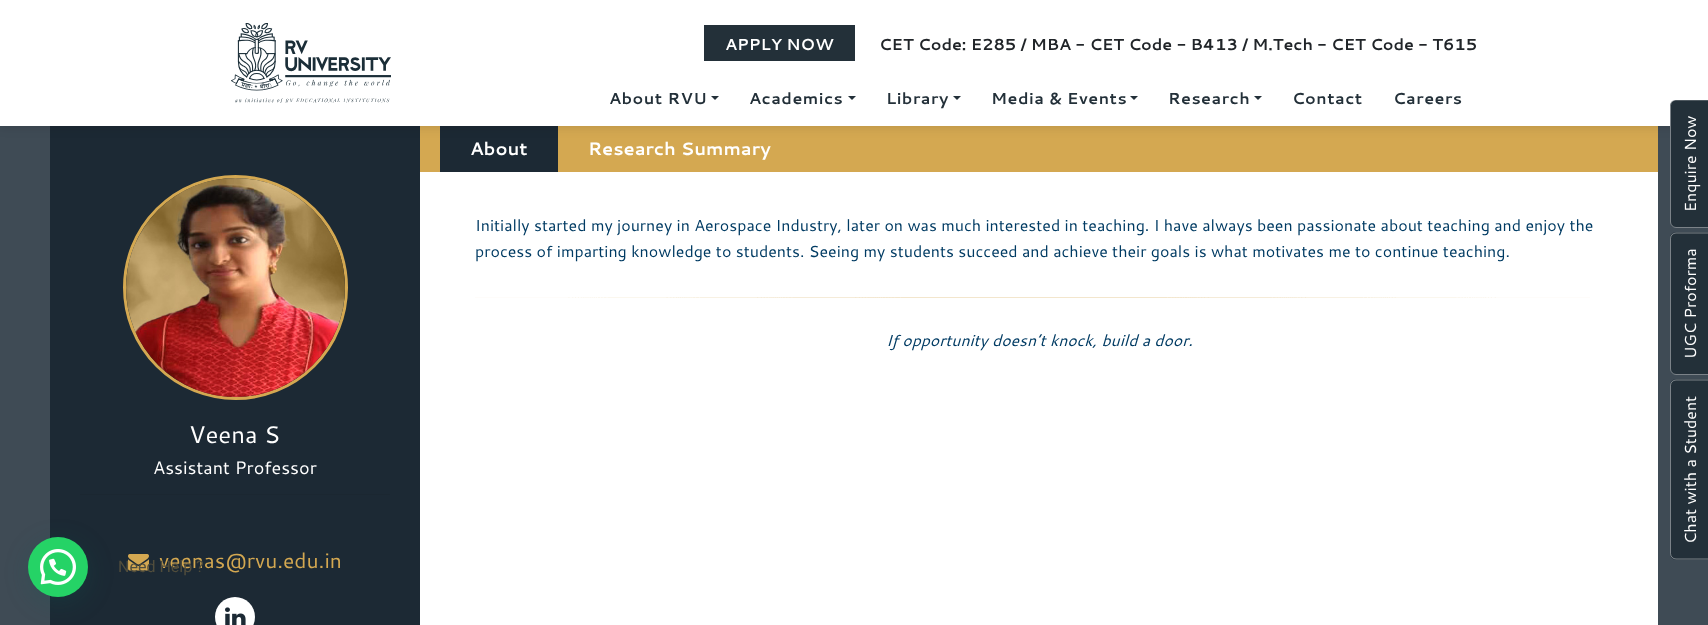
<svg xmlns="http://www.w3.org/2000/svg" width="1708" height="625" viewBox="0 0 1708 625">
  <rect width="100%" height="100%" fill="rgb(63,75,85)"/>
  <rect x="420" y="126" width="1238" height="46" fill="rgb(212,168,81)"/>
  <rect x="440" y="126" width="118" height="46" fill="rgb(28,41,52)"/>
  <rect x="50" y="126" width="370" height="499" fill="rgb(28,41,52)"/>
  <rect x="-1" y="-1" width="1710" height="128" fill="rgba(0,0,0,0.12)" filter="blur(5.5px)"/>
  <rect x="0" y="0" width="1708" height="126" fill="rgb(255,255,255)"/>
  <image x="231" y="23" width="160" height="80" href="pic1.png"/>
  <rect x="704" y="25" width="151" height="36" fill="rgb(35,48,57)"/>
  <text x="725" y="50" font-family="Cantarell" font-size="16" font-weight="bold" fill="rgb(255,255,255)">APPLY NOW</text>
  <text x="879" y="50" font-family="Cantarell" font-size="16" font-weight="bold" fill="rgb(33,37,41)">CET Code: E285 / MBA - CET Code - B413 / M.Tech - CET Code - T615</text>
  <text x="609" y="104" font-family="Cantarell" font-size="16" font-weight="bold" letter-spacing="0.5" fill="rgb(35,48,57)">About RVU</text>
  <path d="M711 96H719L715 100Z" fill="rgb(35,48,57)"/>
  <text x="749" y="104" font-family="Cantarell" font-size="16" font-weight="bold" letter-spacing="0.5" fill="rgb(35,48,57)">Academics</text>
  <path d="M848 96H856L852 100Z" fill="rgb(35,48,57)"/>
  <text x="886" y="104" font-family="Cantarell" font-size="16" font-weight="bold" letter-spacing="0.5" fill="rgb(35,48,57)">Library</text>
  <path d="M953 96H961L957 100Z" fill="rgb(35,48,57)"/>
  <text x="991" y="104" font-family="Cantarell" font-size="16" font-weight="bold" letter-spacing="0.5" fill="rgb(35,48,57)">Media &amp; Events</text>
  <path d="M1130 96H1138L1134 100Z" fill="rgb(35,48,57)"/>
  <text x="1168" y="104" font-family="Cantarell" font-size="16" font-weight="bold" letter-spacing="0.5" fill="rgb(35,48,57)">Research</text>
  <path d="M1254 96H1262L1258 100Z" fill="rgb(35,48,57)"/>
  <g font-family="Cantarell" font-size="16" font-weight="bold" letter-spacing="0.5" fill="rgb(35,48,57)">
    <text x="1292" y="104">Contact</text>
    <text x="1393" y="104">Careers</text>
  </g>
  <g font-family="Cantarell" font-size="18" font-weight="bold" fill="rgb(255,255,255)">
    <text x="470" y="155">About</text>
    <text x="588" y="155">Research Summary</text>
  </g>
  <rect x="420" y="172" width="1238" height="453" fill="rgb(255,255,255)"/>
  <g font-family="Cantarell" font-size="16" fill="rgb(0,59,99)">
    <text>
      <tspan x="475" y="231">Initially started my journey in Aerospace Industry, later on was much interested in teaching. I have always been passionate about teaching and enjoy the</tspan>
      <tspan x="475" y="257">process of imparting knowledge to students. Seeing my students succeed and achieve their goals is what motivates me to continue teaching.</tspan>
    </text>
  </g>
  <image x="475" y="297" width="1115" height="1" href="pic2.png"/>
  <text x="886" y="346" font-family="Cantarell" font-size="16" font-style="italic" fill="rgb(0,59,99)">If opportunity doesn’t knock, build a door.</text>
  <circle cx="235.5" cy="287.5" r="111" fill="none" stroke="rgb(212,168,81)" stroke-width="3"/>
  <image x="126" y="178" width="219" height="219" href="pic3.png"/>
  <text x="189" y="443" font-family="Cantarell" font-size="24" fill="rgb(255,255,255)">Veena S</text>
  <text x="153" y="474" font-family="Cantarell" font-size="18" fill="rgb(255,255,255)">Assistant Professor</text>
  <rect x="80" y="494" width="310" height="1" fill="rgb(27,39,49)"/>
  <image x="128" y="554" width="21" height="17" href="pic4.png"/>
  <text x="159" y="568" font-family="Cantarell" font-size="21" fill="rgb(212,168,81)">veenas@rvu.edu.in</text>
  <circle cx="235" cy="617" r="20" fill="rgb(255,255,255)"/>
  <image x="225" y="607" width="21" height="18" href="pic5.png"/>
  <path d="M1670 222V106C1670 102 1673 100 1676 100H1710V228H1676C1673 228 1670 225 1670 222Z" fill="rgb(35,48,57)"/>
  <path d="M1670.5 222V105.5C1670.5 102.5 1673 100 1676 100H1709.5V227.5H1676C1673 227.5 1670.5 225 1670.5 222Z" fill="none" stroke="rgba(255,255,255,0.4)"/>
  <text x="1696" y="212" transform="rotate(-90 1696 212)" font-family="Cantarell" font-size="16" fill="rgb(255,255,255)">Enquire Now</text>
  <path d="M1670 369V238C1670 235 1673 232 1676 232H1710V375H1676C1673 375 1670 372 1670 369Z" fill="rgb(35,48,57)"/>
  <path d="M1670.5 369V238.5C1670.5 235.5 1673 233 1676 233H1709.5V374.5H1676C1673 374.5 1670.5 372 1670.5 369Z" fill="none" stroke="rgba(255,255,255,0.4)"/>
  <text x="1696" y="359" transform="rotate(-90 1696 359)" font-family="Cantarell" font-size="16" fill="rgb(255,255,255)">UGC Proforma</text>
  <path d="M1670 554V385C1670 382 1673 379 1676 379H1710V560H1676C1673 560 1670 557 1670 554Z" fill="rgb(35,48,57)"/>
  <path d="M1670.5 553.5V385.5C1670.5 382.5 1673 380 1676 380H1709.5V559H1676C1673 559 1670.5 556.5 1670.5 553.5Z" fill="none" stroke="rgba(255,255,255,0.4)"/>
  <text x="1696" y="544" transform="rotate(-90 1696 544)" font-family="Cantarell" font-size="16" fill="rgb(255,255,255)">Chat with a Student</text>
  <rect x="29" y="543" width="60" height="60" rx="30" fill="rgba(7,94,84,0.24)" filter="blur(12px)"/>
  <circle cx="58" cy="567" r="30" fill="rgb(37,211,102)"/>
  <image x="40" y="549" width="36" height="36" href="pic6.png"/>
  <text x="118" y="572" font-family="Roboto" font-size="16" fill="rgb(81,77,60)">Need Help ?</text>
</svg>
